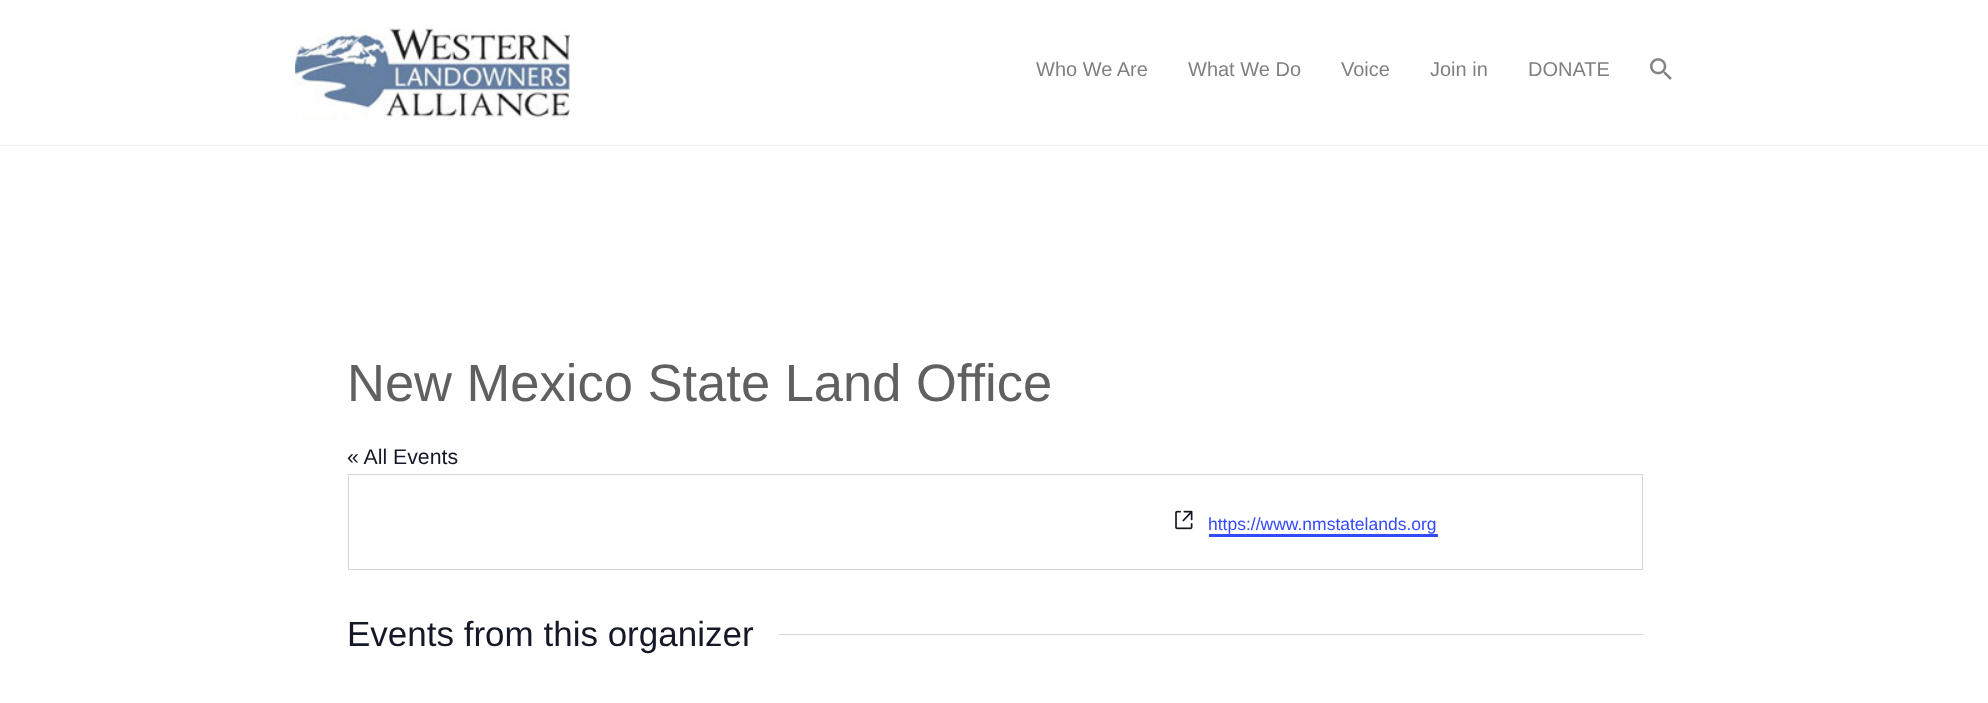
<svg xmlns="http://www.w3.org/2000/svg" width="1988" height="703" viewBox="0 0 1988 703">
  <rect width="100%" height="100%" fill="rgb(255,255,255)"/>
  <rect x="0" y="145" width="1988" height="1" fill="rgb(238,238,238)"/>
  <image x="294" y="25" width="276" height="95" href="pic1.png"/>
  <g font-family="Liberation Sans" font-size="20" fill="rgb(128,128,128)">
    <text x="1036" y="76">Who We Are</text>
    <text x="1188" y="76">What We Do</text>
    <text x="1341" y="76">Voice</text>
    <text x="1430" y="76">Join in</text>
    <text x="1528" y="76">DONATE</text>
  </g>
  <image x="1650" y="58" width="22" height="22" href="pic2.png"/>
  <text x="347" y="401" font-family="Liberation Sans" font-size="52.5" fill="rgb(96,96,96)">New Mexico State Land Office</text>
  <text x="347" y="464" font-family="Liberation Sans" font-size="21.25" fill="rgb(20,24,39)">« All Events</text>
  <rect x="348.5" y="474.5" width="1294" height="95" fill="none" stroke="rgb(213,213,213)"/>
  <image x="1175" y="510" width="18" height="20" href="pic3.png"/>
  <text x="1208" y="530" font-family="Liberation Sans" font-size="17.5" fill="rgb(51,74,255)">https://www.nmstatelands.org</text>
  <rect x="1209" y="534" width="229" height="3" fill="rgb(51,74,255)"/>
  <text x="347" y="646" font-family="Liberation Sans" font-size="35" fill="rgb(20,24,39)">Events from this organizer</text>
  <rect x="779" y="634" width="864" height="1" fill="rgb(213,213,213)"/>
</svg>
